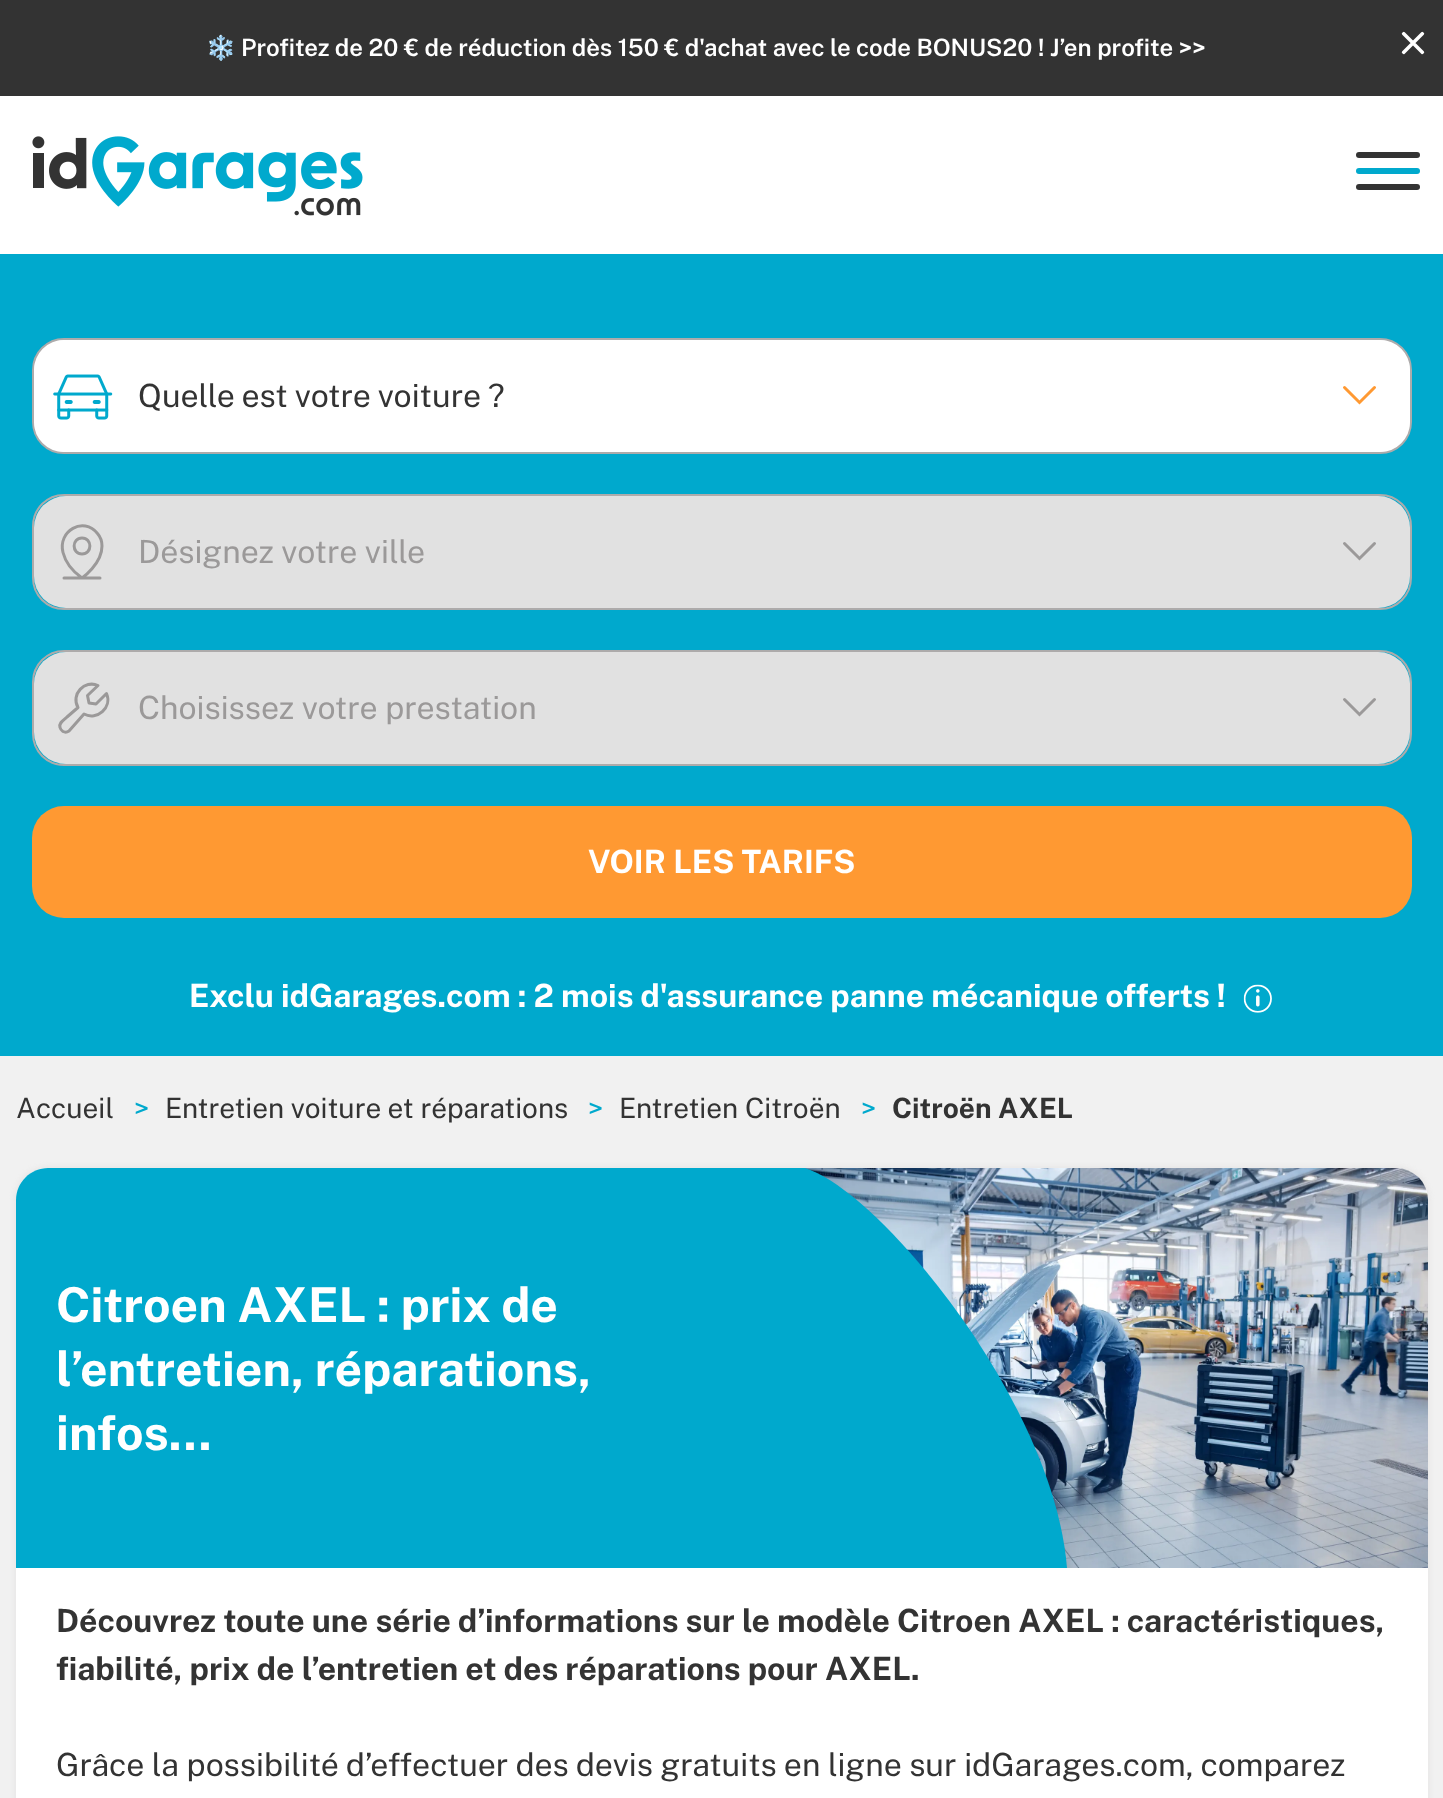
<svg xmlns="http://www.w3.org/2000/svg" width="1443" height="1798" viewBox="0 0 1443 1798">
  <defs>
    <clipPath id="clip1"><path d="M1413 22L1434 43L1413 64L1392 43Z"/></clipPath>
  </defs>
  <rect width="100%" height="100%" fill="rgb(241,241,241)"/>
  <rect x="0" y="96" width="1443" height="158" fill="rgb(255,255,255)"/>
  <rect x="0" y="0" width="1443" height="96" fill="rgb(51,51,51)"/>
  <text x="206" y="56" font-family="Noto Color Emoji" font-size="24" font-weight="bold" fill="rgb(255,255,255)">❄️</text>
  <text x="241" y="56" font-family="Public Sans" font-size="24" font-weight="600" fill="rgb(255,255,255)">Profitez de 20 € de réduction dès 150 € d'achat avec le code BONUS20 ! J’en profite &gt;&gt;</text>
  <g clip-path="url(#clip1)">
    <path d="M1403.5 33.5L1422.5 52.5M1422.5 33.5L1403.5 52.5" fill="none" stroke="rgb(255,255,255)" stroke-width="3.5" stroke-linecap="round" stroke-linejoin="round"/>
  </g>
  <image x="32" y="136" width="331" height="80" href="pic1.png"/>
  <rect x="1356" y="168" width="64" height="6" rx="3" fill="rgb(0,169,205)"/>
  <rect x="1356" y="152" width="64" height="6" rx="3" fill="rgb(51,51,51)"/>
  <rect x="1356" y="184" width="64" height="6" rx="3" fill="rgb(51,51,51)"/>
  <rect x="0" y="254" width="1443" height="802" fill="rgb(0,169,205)"/>
  <rect x="33" y="339" width="1378" height="114" rx="31" fill="rgb(255,255,255)" stroke="rgb(173,171,171)" stroke-width="2"/>
  <rect x="34" y="340" width="1376" height="112" rx="32" fill="rgb(255,255,255)"/>
  <image x="53" y="374" width="60" height="46" href="pic2.png"/>
  <text x="138" y="407" word-spacing="-0.5" font-family="Public Sans" font-size="32" fill="rgb(51,51,51)">Quelle est votre voiture ?</text>
  <path d="M1344.5 387.5L1359.5 402.5L1374.5 387.5" fill="none" stroke="rgb(255,153,50)" stroke-width="3" stroke-linecap="round"/>
  <rect x="33" y="495" width="1378" height="114" rx="31" fill="none" stroke="rgb(173,171,171)" stroke-width="2"/>
  <rect x="34" y="496" width="1376" height="112" rx="32" fill="rgb(255,255,255)"/>
  <path d="M64 578H100M82 554C92.5 554 92.5 538 82 538C71.5 538 71.5 554 82 554ZM102 546C102 564 82 578 82 578C73.5 572 65.5 562.5 63 552.5C57.5 531 83.5 516 97.5 533.5C100.5 537 102 541.5 102 546Z" fill="none" stroke="rgb(173,171,171)" stroke-width="3" stroke-linecap="round" stroke-linejoin="round"/>
  <text x="138" y="563" font-family="Public Sans" font-size="32" fill="rgb(173,171,171)">Désignez votre ville</text>
  <path d="M1344.5 543.5L1359.5 558.5L1374.5 543.5" fill="none" stroke="rgb(173,171,171)" stroke-width="3" stroke-linecap="round"/>
  <rect x="34" y="496" width="1376" height="112" rx="32" fill="rgba(51,51,51,0.15)"/>
  <rect x="33" y="651" width="1378" height="114" rx="31" fill="none" stroke="rgb(173,171,171)" stroke-width="2"/>
  <rect x="34" y="652" width="1376" height="112" rx="32" fill="rgb(255,255,255)"/>
  <path d="M106.5 693.5C112.5 707.5 97 721 84 714L69 731C67.5 732 65 732.5 63 731.5C61.5 730.5 60.5 729.5 60 727.5C58.5 722.5 64 720 67 717L78 707.5C70.5 694.5 84.5 679.5 98 685.5L87.5 695.5L89 703L96 704Z" fill="none" stroke="rgb(173,171,171)" stroke-width="3" stroke-linecap="round" stroke-linejoin="round"/>
  <text x="138" y="719" font-family="Public Sans" font-size="32" fill="rgb(173,171,171)">Choisissez votre prestation</text>
  <path d="M1344.5 699.5L1359.5 714.5L1374.5 699.5" fill="none" stroke="rgb(173,171,171)" stroke-width="3" stroke-linecap="round"/>
  <rect x="34" y="652" width="1376" height="112" rx="32" fill="rgba(51,51,51,0.15)"/>
  <rect x="32" y="806" width="1380" height="112" rx="32" fill="rgb(255,153,50)"/>
  <g font-family="Public Sans" font-size="32" font-weight="bold" fill="rgb(255,255,255)">
    <text x="588" y="873">VOIR LES TARIFS</text>
    <text x="189" y="1007">Exclu idGarages.com : 2 mois d'assurance panne mécanique offerts !</text>
  </g>
  <image x="1243" y="984" width="29" height="29" href="pic3.png"/>
  <text x="16" y="1118" font-family="Public Sans" font-size="28" fill="rgb(51,51,51)">Accueil</text>
  <text x="134" y="1118" font-family="Public Sans" font-size="28" fill="rgb(0,169,205)">&gt;</text>
  <text x="165" y="1118" font-family="Public Sans" font-size="28" fill="rgb(51,51,51)">Entretien voiture et réparations</text>
  <text x="588" y="1118" font-family="Public Sans" font-size="28" fill="rgb(0,169,205)">&gt;</text>
  <text x="619" y="1118" font-family="Public Sans" font-size="28" fill="rgb(51,51,51)">Entretien Citroën</text>
  <text x="861" y="1118" font-family="Public Sans" font-size="28" fill="rgb(0,169,205)">&gt;</text>
  <text x="892" y="1118" font-family="Public Sans" font-size="28" font-weight="bold" fill="rgb(51,51,51)">Citroën AXEL</text>
  <rect x="14" y="1166" width="1416" height="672" rx="34" fill="rgb(232,231,231)" filter="blur(2px)"/>
  <rect x="16" y="1168" width="1412" height="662" rx="32" fill="rgb(255,255,255)"/>
  <path d="M48 1168H792V1568H16V1200C16 1182.5 30.5 1168 48 1168Z" fill="rgb(0,169,205)"/>
  <g font-family="Public Sans" font-size="48" font-weight="bold" fill="rgb(255,255,255)">
    <text>
      <tspan x="56" y="1322">Citroen AXEL : prix de</tspan>
      <tspan x="56" y="1386">l’entretien, réparations,</tspan>
      <tspan x="56" y="1450">infos…</tspan>
    </text>
  </g>
  <image x="805" y="1168" width="623" height="400" href="pic4.png"/>
  <path d="M783 1568V1168H805C881 1192 1054 1403 1067 1568Z" fill="rgb(0,169,205)"/>
  <g font-family="Public Sans" font-size="32" font-weight="bold" fill="rgb(51,51,51)">
    <text>
      <tspan x="56" y="1632">Découvrez toute une série d’informations sur le modèle Citroen AXEL : caractéristiques,</tspan>
      <tspan x="56" y="1680">fiabilité, prix de l’entretien et des réparations pour AXEL.</tspan>
    </text>
  </g>
  <text x="56" y="1776" word-spacing="-0.25" font-family="Public Sans" font-size="32" fill="rgb(51,51,51)">Grâce la possibilité d’effectuer des devis gratuits en ligne sur idGarages.com, comparez</text>
</svg>
